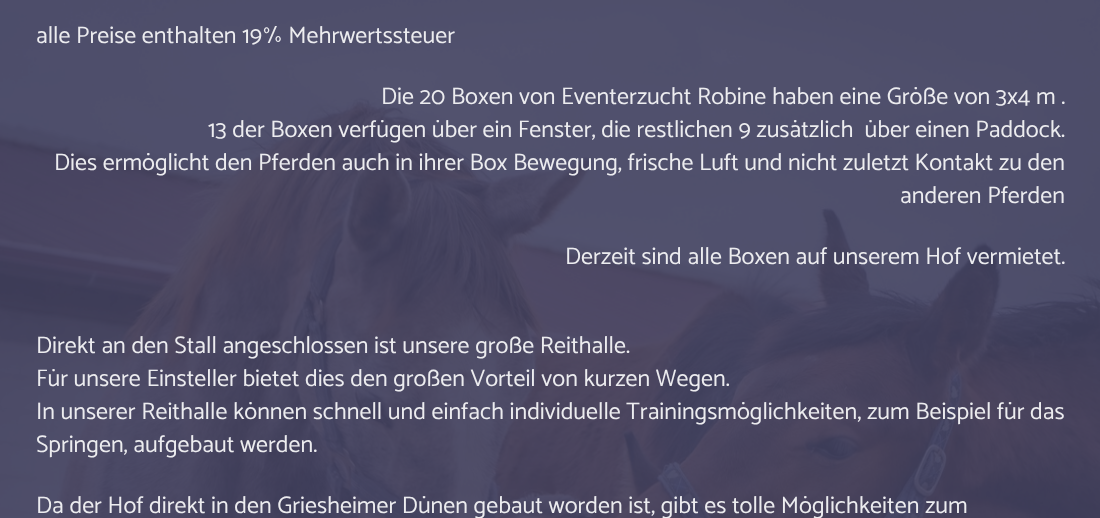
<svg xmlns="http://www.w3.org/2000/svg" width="1100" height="518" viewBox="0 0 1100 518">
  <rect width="100%" height="100%" fill="rgb(255,255,255)"/>
  <image x="0" y="0" width="1100" height="518" href="pic1.png"/>
  <g font-family="Catamaran" font-size="24" fill="rgb(236,236,239)">
    <text x="36" y="43">alle Preise enthalten 19% Mehrwertssteuer</text>
    <text x="381" y="104">Die 20 Boxen von Eventerzucht Robine haben eine Größe von 3x4 m .</text>
    <text x="208" y="137" xml:space="preserve">13 der Boxen verfügen über ein Fenster, die restlichen 9 zusätzlich  über einen Paddock.</text>
    <text x="54" y="170">Dies ermöglicht den Pferden auch in ihrer Box Bewegung, frische Luft und nicht zuletzt Kontakt zu den</text>
    <text x="900" y="203">anderen Pferden</text>
    <text x="565" y="264">Derzeit sind alle Boxen auf unserem Hof vermietet.</text>
    <text>
      <tspan x="36" y="353">Direkt an den Stall angeschlossen ist unsere große Reithalle.</tspan>
      <tspan x="36" y="386">Für unsere Einsteller bietet dies den großen Vorteil von kurzen Wegen.</tspan>
      <tspan x="36" y="419">In unserer Reithalle können schnell und einfach individuelle Trainingsmöglichkeiten, zum Beispiel für das</tspan>
      <tspan x="36" y="452">Springen, aufgebaut werden.</tspan>
    </text>
    <text x="36" y="513">Da der Hof direkt in den Griesheimer Dünen gebaut worden ist, gibt es tolle Möglichkeiten zum</text>
  </g>
</svg>
